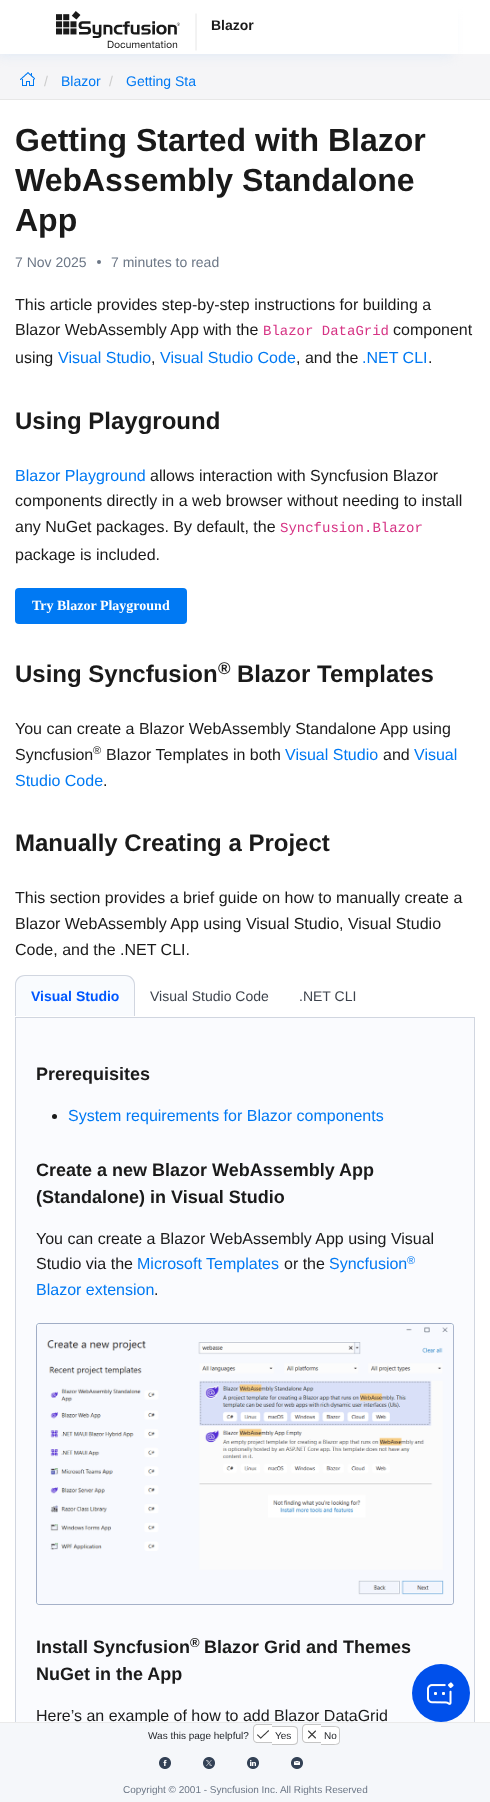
<svg xmlns="http://www.w3.org/2000/svg" width="490" height="1802" viewBox="0 0 490 1802">
  <defs>
    <clipPath id="clip1"><path d="M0 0H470V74H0ZM-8 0H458V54H-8Z" clip-rule="evenodd"/></clipPath>
  </defs>
  <rect width="100%" height="100%" fill="rgb(255,255,255)"/>
  <rect x="0" y="54" width="490" height="45" fill="rgb(245,245,247)"/>
  <image x="20" y="72" width="15" height="14" href="pic2.png"/>
  <g clip-path="url(#clip1)">
    <rect x="-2" y="14" width="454" height="42" fill="rgb(226,234,245)" filter="blur(5.5px)"/>
  </g>
  <image x="56" y="11" width="141" height="40" href="pic1.png"/>
  <text x="211" y="30" font-family="Liberation Sans" font-size="14" font-weight="bold" fill="rgb(26,26,26)">Blazor</text>
  <rect x="0" y="99" width="490" height="1" fill="rgb(231,231,231)"/>
  <text x="44" y="86" font-family="Liberation Sans" font-size="14" fill="rgb(204,204,204)">/</text>
  <text x="61" y="86" font-family="Liberation Sans" font-size="14" fill="rgb(0,121,243)">Blazor</text>
  <text x="109" y="86" font-family="Liberation Sans" font-size="14" fill="rgb(204,204,204)">/</text>
  <text x="126" y="86" font-family="Liberation Sans" font-size="14" fill="rgb(0,121,243)">Getting Sta</text>
  <g font-family="Liberation Sans" font-size="32" font-weight="bold" fill="rgb(26,26,26)">
    <text>
      <tspan x="15" y="151">Getting Started with Blazor</tspan>
      <tspan x="15" y="191">WebAssembly Standalone</tspan>
      <tspan x="15" y="231">App</tspan>
    </text>
  </g>
  <text x="15" y="267" font-family="Liberation Sans" font-size="14" fill="rgb(108,119,134)">7 Nov 2025</text>
  <circle cx="99" cy="262" r="2" fill="rgb(108,119,134)"/>
  <text x="111" y="267" font-family="Liberation Sans" font-size="14" fill="rgb(108,119,134)">7 minutes to read</text>
  <g font-family="Liberation Sans" font-size="16" fill="rgb(26,26,26)">
    <text>
      <tspan x="15" y="310">This article provides step-by-step instructions for building a</tspan>
      <tspan x="15" y="335">Blazor WebAssembly App with the</tspan>
    </text>
  </g>
  <text x="263" y="335" font-family="Liberation Mono" font-size="14" fill="rgb(214,51,132)">Blazor DataGrid</text>
  <g font-family="Liberation Sans" font-size="16" fill="rgb(26,26,26)">
    <text x="393" y="335">component</text>
    <text x="15" y="363">using</text>
  </g>
  <text x="58" y="363" font-family="Liberation Sans" font-size="16" fill="rgb(0,121,243)">Visual Studio</text>
  <text x="151" y="363" font-family="Liberation Sans" font-size="16" fill="rgb(26,26,26)">,</text>
  <text x="160" y="363" font-family="Liberation Sans" font-size="16" fill="rgb(0,121,243)">Visual Studio Code</text>
  <text x="296" y="363" font-family="Liberation Sans" font-size="16" fill="rgb(26,26,26)">, and the</text>
  <text x="362" y="363" font-family="Liberation Sans" font-size="16" fill="rgb(0,121,243)">.NET CLI</text>
  <text x="428" y="363" font-family="Liberation Sans" font-size="16" fill="rgb(26,26,26)">.</text>
  <text x="15" y="429" font-family="Liberation Sans" font-size="24" font-weight="bold" fill="rgb(26,26,26)">Using Playground</text>
  <text x="15" y="481" font-family="Liberation Sans" font-size="16" fill="rgb(0,121,243)">Blazor Playground</text>
  <g font-family="Liberation Sans" font-size="16" fill="rgb(26,26,26)">
    <text x="150" y="481">allows interaction with Syncfusion Blazor</text>
    <text>
      <tspan x="15" y="506">components directly in a web browser without needing to install</tspan>
      <tspan x="15" y="532">any NuGet packages. By default, the</tspan>
    </text>
  </g>
  <text x="280" y="532" font-family="Liberation Mono" font-size="14" fill="rgb(214,51,132)">Syncfusion.Blazor</text>
  <text x="15" y="560" font-family="Liberation Sans" font-size="16" fill="rgb(26,26,26)">package is included.</text>
  <rect x="15" y="588" width="172" height="36" rx="4" fill="rgb(0,121,243)"/>
  <text x="32" y="610" font-family="Liberation Serif" font-size="14" font-weight="bold" fill="rgb(255,255,255)">Try Blazor Playground</text>
  <text x="15" y="682" font-family="Liberation Sans" font-size="24" font-weight="bold" fill="rgb(26,26,26)">Using Syncfusion</text>
  <text x="218" y="674" font-family="Liberation Sans" font-size="17" font-weight="bold" fill="rgb(26,26,26)">®</text>
  <text x="237" y="682" font-family="Liberation Sans" font-size="24" font-weight="bold" fill="rgb(26,26,26)">Blazor Templates</text>
  <g font-family="Liberation Sans" font-size="16" fill="rgb(26,26,26)">
    <text>
      <tspan x="15" y="734">You can create a Blazor WebAssembly Standalone App using</tspan>
      <tspan x="15" y="760">Syncfusion</tspan>
    </text>
  </g>
  <text x="93" y="754" font-family="Liberation Sans" font-size="11" fill="rgb(26,26,26)">®</text>
  <text x="106" y="760" font-family="Liberation Sans" font-size="16" fill="rgb(26,26,26)">Blazor Templates in both</text>
  <text x="285" y="760" font-family="Liberation Sans" font-size="16" fill="rgb(0,121,243)">Visual Studio</text>
  <text x="383" y="760" font-family="Liberation Sans" font-size="16" fill="rgb(26,26,26)">and</text>
  <g font-family="Liberation Sans" font-size="16" fill="rgb(0,121,243)">
    <text x="414" y="760">Visual</text>
    <text x="15" y="786">Studio Code</text>
  </g>
  <text x="103" y="786" font-family="Liberation Sans" font-size="16" fill="rgb(26,26,26)">.</text>
  <text x="15" y="851" font-family="Liberation Sans" font-size="24" font-weight="bold" fill="rgb(26,26,26)">Manually Creating a Project</text>
  <g font-family="Liberation Sans" font-size="16" fill="rgb(26,26,26)">
    <text>
      <tspan x="15" y="903">This section provides a brief guide on how to manually create a</tspan>
      <tspan x="15" y="929">Blazor WebAssembly App using Visual Studio, Visual Studio</tspan>
      <tspan x="15" y="955">Code, and the .NET CLI.</tspan>
    </text>
  </g>
  <path d="M25 975H125C130.5 975 135 979.5 135 985V1016H15V985C15 979.5 19.5 975 25 975Z" fill="rgb(249,251,254)"/>
  <path d="M25 975H125C131 975 135 979 135 985V1016H15V985C15 979 19 975 25 975ZM25 976H125C130 976 134 980 134 985V1016H16V985C16 980 20 976 25 976Z" fill="rgb(209,214,224)" fill-rule="evenodd"/>
  <text x="31" y="1001" font-family="Liberation Sans" font-size="14" font-weight="bold" fill="rgb(0,87,255)">Visual Studio</text>
  <g font-family="Liberation Sans" font-size="14" fill="rgb(61,67,76)">
    <text x="150" y="1001">Visual Studio Code</text>
    <text x="299" y="1001">.NET CLI</text>
  </g>
  <rect x="16" y="1018" width="458" height="704" fill="rgb(250,251,254)"/>
  <rect x="15.5" y="1017.5" width="459" height="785" fill="none" stroke="rgb(209,214,224)"/>
  <text x="36" y="1080" font-family="Liberation Sans" font-size="18" font-weight="bold" fill="rgb(26,26,26)">Prerequisites</text>
  <circle cx="54.5" cy="1116.5" r="2.5" fill="rgb(26,26,26)"/>
  <text x="68" y="1121" font-family="Liberation Sans" font-size="16" fill="rgb(0,121,243)">System requirements for Blazor components</text>
  <g font-family="Liberation Sans" font-size="18" font-weight="bold" fill="rgb(26,26,26)">
    <text>
      <tspan x="36" y="1176">Create a new Blazor WebAssembly App</tspan>
      <tspan x="36" y="1203">(Standalone) in Visual Studio</tspan>
    </text>
  </g>
  <g font-family="Liberation Sans" font-size="16" fill="rgb(26,26,26)">
    <text>
      <tspan x="36" y="1244">You can create a Blazor WebAssembly App using Visual</tspan>
      <tspan x="36" y="1269">Studio via the</tspan>
    </text>
  </g>
  <text x="137" y="1269" font-family="Liberation Sans" font-size="16" fill="rgb(0,121,243)">Microsoft Templates</text>
  <text x="284" y="1269" font-family="Liberation Sans" font-size="16" fill="rgb(26,26,26)">or the</text>
  <text x="329" y="1269" font-family="Liberation Sans" font-size="16" fill="rgb(0,121,243)">Syncfusion</text>
  <text x="407" y="1264" font-family="Liberation Sans" font-size="11" fill="rgb(0,121,243)">®</text>
  <text x="36" y="1295" font-family="Liberation Sans" font-size="16" fill="rgb(0,121,243)">Blazor extension</text>
  <text x="154" y="1295" font-family="Liberation Sans" font-size="16" fill="rgb(26,26,26)">.</text>
  <image x="36" y="1323" width="418" height="282" href="pic3.png"/>
  <text x="36" y="1653" font-family="Liberation Sans" font-size="18" font-weight="bold" fill="rgb(26,26,26)">Install Syncfusion</text>
  <text x="190" y="1647" font-family="Liberation Sans" font-size="13" font-weight="bold" fill="rgb(26,26,26)">®</text>
  <g font-family="Liberation Sans" font-size="18" font-weight="bold" fill="rgb(26,26,26)">
    <text x="204" y="1653">Blazor Grid and Themes</text>
    <text x="36" y="1680">NuGet in the App</text>
  </g>
  <text x="36" y="1721" font-family="Liberation Sans" font-size="16" fill="rgb(26,26,26)">Here’s an example of how to add Blazor DataGrid</text>
  <circle cx="441" cy="1693" r="29" fill="rgb(0,80,235)"/>
  <image x="427" y="1682" width="27" height="23" href="pic4.png"/>
  <rect x="0" y="1723" width="490" height="79" fill="rgb(245,247,250)"/>
  <rect x="0" y="1722" width="490" height="1" fill="rgb(234,234,234)"/>
  <text x="148" y="1739" font-family="Liberation Sans" font-size="10" fill="rgb(34,37,42)">Was this page helpful?</text>
  <path d="M257 1724H272V1743H257C255 1743 253 1741 253 1739V1728C253 1726 255 1724 257 1724Z" fill="rgb(255,255,255)"/>
  <path d="M257 1724H272V1743H257C255 1743 253 1741 253 1739V1728C253 1726 255 1724 257 1724ZM257 1725H272V1742H257C255.5 1742 254 1740.5 254 1739V1728C254 1726.5 255.5 1725 257 1725Z" fill="rgb(197,197,197)" fill-rule="evenodd"/>
  <path d="M272 1726H294C296 1726 298 1728 298 1730V1741C298 1743 296 1745 294 1745H272Z" fill="rgb(255,255,255)"/>
  <path d="M272 1726H290.5C299 1726 298 1727.5 298 1735.5C298 1743.5 299 1745 290.5 1745H272ZM272 1727H290.5C298 1727 297 1728 297 1735.5C297 1743 298 1744 290.5 1744H272Z" fill="rgb(197,197,197)" fill-rule="evenodd"/>
  <image x="257" y="1730" width="12" height="9" href="pic5.png"/>
  <text x="275" y="1739" font-family="Liberation Sans" font-size="10" fill="rgb(34,37,42)">Yes</text>
  <path d="M306 1724H321V1743H306C304 1743 302 1741 302 1739V1728C302 1726 304 1724 306 1724Z" fill="rgb(255,255,255)"/>
  <path d="M306 1724H321V1743H306C304 1743 302 1741 302 1739V1728C302 1726 304 1724 306 1724ZM306 1725H321V1742H306C304.5 1742 303 1740.5 303 1739V1728C303 1726.5 304.5 1725 306 1725Z" fill="rgb(197,197,197)" fill-rule="evenodd"/>
  <path d="M321 1726H336C338 1726 340 1728 340 1730V1741C340 1743 338 1745 336 1745H321Z" fill="rgb(255,255,255)"/>
  <path d="M321 1726H333.5C341 1726 340 1729 340 1735.5C340 1742 341 1745 333.5 1745H321ZM321 1727H333.5C340.5 1727 339 1729.5 339 1735.5C339 1741.5 340.5 1744 333.5 1744H321Z" fill="rgb(197,197,197)" fill-rule="evenodd"/>
  <image x="308" y="1730" width="8" height="9" href="pic6.png"/>
  <text x="324" y="1739" font-family="Liberation Sans" font-size="10" fill="rgb(34,37,42)">No</text>
  <image x="159" y="1757" width="12" height="12" href="pic7.png"/>
  <image x="203" y="1757" width="12" height="12" href="pic8.png"/>
  <image x="247" y="1757" width="12" height="12" href="pic9.png"/>
  <image x="291" y="1757" width="12" height="12" href="pic10.png"/>
  <text x="123" y="1793" font-family="Liberation Sans" font-size="10" fill="rgb(108,119,134)">Copyright © 2001 - Syncfusion Inc. All Rights Reserved</text>
</svg>
